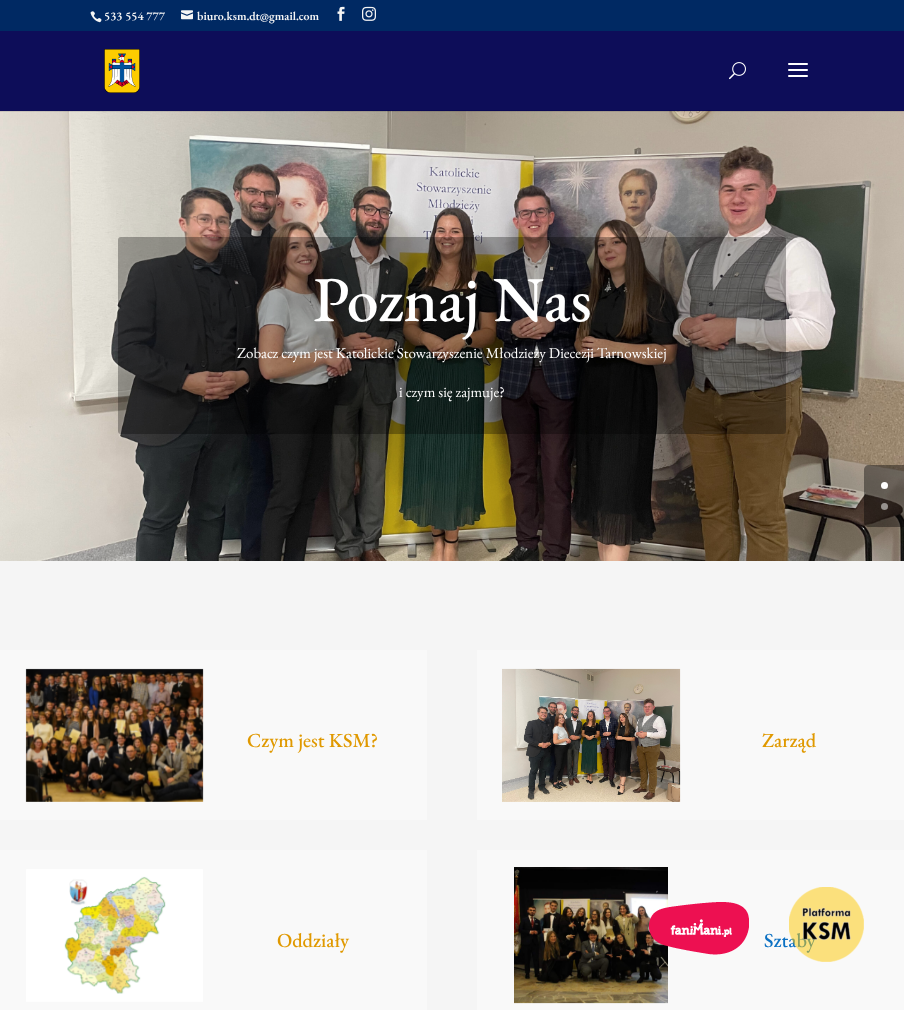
<svg xmlns="http://www.w3.org/2000/svg" width="904" height="1010" viewBox="0 0 904 1010">
  <rect width="100%" height="100%" fill="rgb(245,245,245)"/>
  <rect x="0" y="0" width="904" height="31" fill="rgb(0,41,99)"/>
  <image x="90" y="11" width="12" height="12" href="pic1.png"/>
  <text x="104" y="20" font-family="EB Garamond" font-size="12" font-weight="600" fill="rgb(245,245,245)">533 554 777</text>
  <image x="181" y="10" width="12" height="10" href="pic2.png"/>
  <text x="197" y="20" font-family="EB Garamond" font-size="12" font-weight="600" fill="rgb(245,245,245)">biuro.ksm.dt@gmail.com</text>
  <image x="337" y="6" width="8" height="15" href="pic3.png"/>
  <image x="362" y="6" width="14" height="15" href="pic4.png"/>
  <image x="0" y="110" width="904" height="451" href="pic8.png"/>
  <rect x="0" y="111" width="904" height="1" fill="rgba(0,0,0,0.1)"/>
  <rect x="0" y="31" width="904" height="80" fill="rgba(0,0,80,0.95)"/>
  <image x="104" y="49" width="36" height="44" href="pic5.png"/>
  <image x="729" y="62" width="17" height="18" href="pic6.png"/>
  <image x="788" y="63" width="20" height="14" href="pic7.png"/>
  <rect x="118" y="237" width="668" height="197" rx="3" fill="rgba(0,0,0,0.3)"/>
  <text x="313" y="321" font-family="EB Garamond" font-size="64" font-weight="500" fill="rgb(255,255,255)">Poznaj Nas</text>
  <g font-family="EB Garamond" font-size="15" fill="rgb(255,255,255)">
    <text x="237" y="358">Zobacz czym jest Katolickie Stowarzyszenie Młodzieży Diecezji Tarnowskiej</text>
    <text x="399" y="397">i czym się zajmuje?</text>
  </g>
  <rect x="0" y="650" width="427" height="170" fill="rgb(249,249,249)"/>
  <image x="25" y="668" width="179" height="134" href="pic9.png"/>
  <text x="247" y="747" font-family="EB Garamond" font-size="20" font-weight="500" fill="rgb(224,153,0)">Czym jest KSM?</text>
  <rect x="477" y="650" width="427" height="170" fill="rgb(249,249,249)"/>
  <image x="502" y="668" width="179" height="134" href="pic10.png"/>
  <text x="762" y="747" font-family="EB Garamond" font-size="20" font-weight="500" fill="rgb(224,153,0)">Zarząd</text>
  <rect x="0" y="850" width="427" height="160" fill="rgb(249,249,249)"/>
  <image x="26" y="869" width="177" height="133" href="pic11.png"/>
  <text x="277" y="947" font-family="EB Garamond" font-size="20" font-weight="500" fill="rgb(224,153,0)">Oddziały</text>
  <rect x="477" y="850" width="427" height="160" fill="rgb(249,249,249)"/>
  <image x="514" y="867" width="154" height="137" href="pic12.png"/>
  <text x="764" y="947" font-family="EB Garamond" font-size="20" font-weight="500" fill="rgb(12,113,195)">Sztaby</text>
  <image x="649" y="902" width="100" height="53" href="pic13.png"/>
  <image x="789" y="887" width="75" height="75" href="pic14.png"/>
  <path d="M869 465H904V527H869C866 527 864 525 864 522V470C864 467 866 465 869 465Z" fill="rgba(0,0,0,0.4)"/>
  <circle cx="884.5" cy="485.5" r="3.5" fill="rgb(255,255,255)"/>
  <circle cx="884.5" cy="506.5" r="3.5" fill="rgba(255,255,255,0.5)"/>
</svg>
